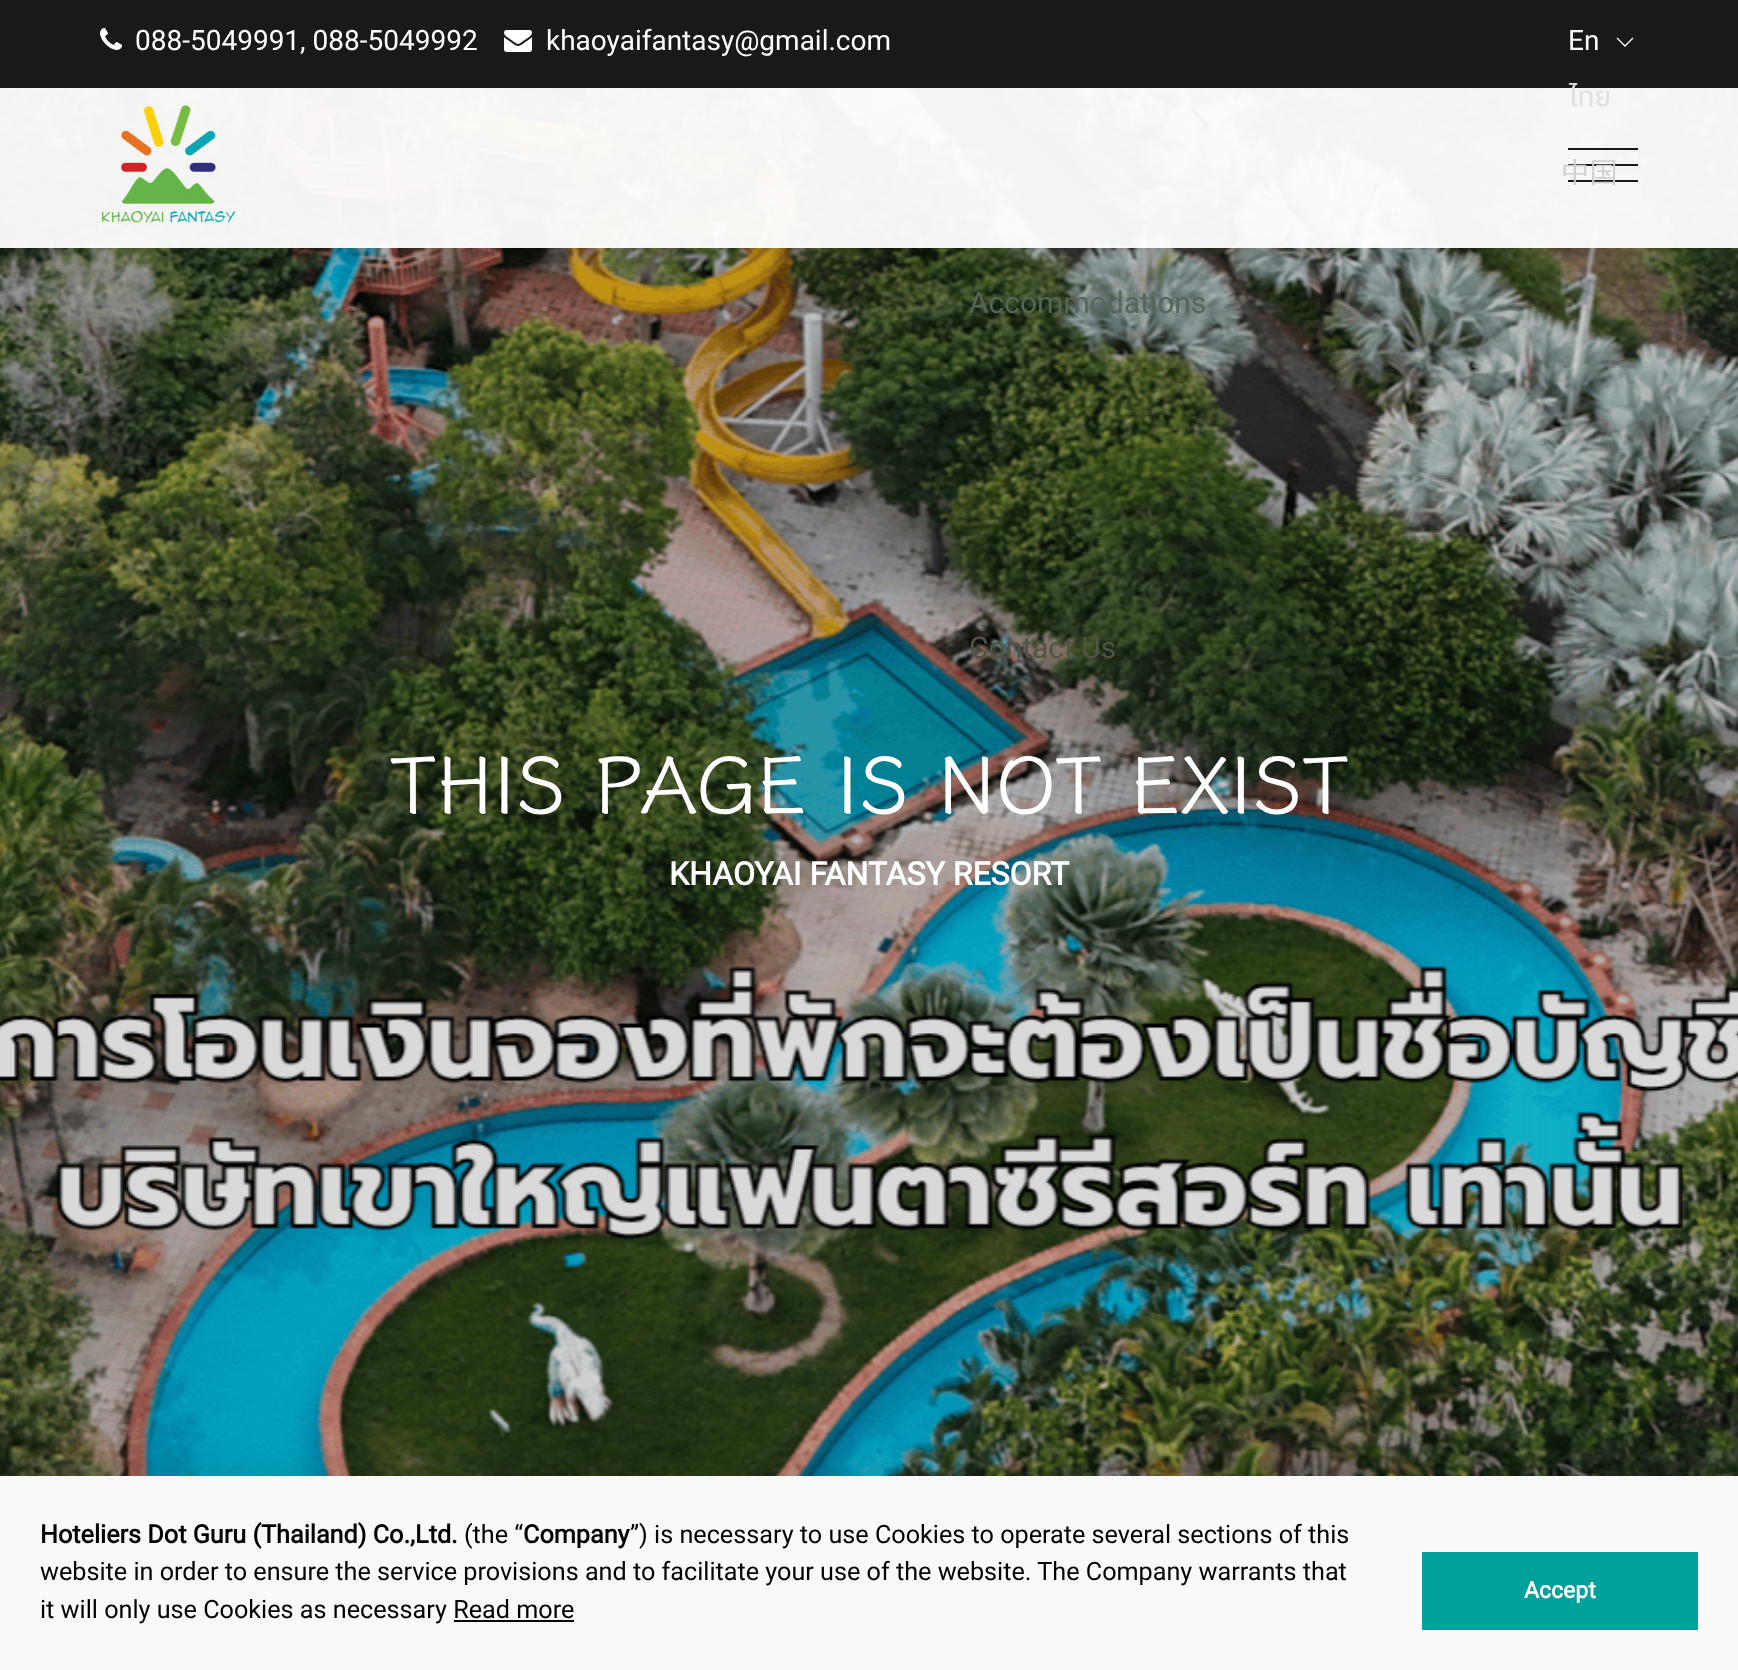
<svg xmlns="http://www.w3.org/2000/svg" width="1738" height="1670" viewBox="0 0 1738 1670">
  <defs>
    <clipPath id="clip1"><rect x="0" y="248" width="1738" height="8"/></clipPath>
  </defs>
  <rect width="100%" height="100%" fill="rgb(255,255,255)"/>
  <image x="0" y="88" width="1738" height="1388" href="pic4.png"/>
  <g clip-path="url(#clip1)">
    <rect x="0" y="88" width="1738" height="160" fill="rgba(0,0,0,0.09)" filter="blur(10px)"/>
  </g>
  <rect x="0" y="88" width="1738" height="160" fill="rgba(255,255,255,0.95)"/>
  <rect x="0" y="0" width="1738" height="88" fill="rgb(24,25,26)"/>
  <image x="100" y="28" width="22" height="22" href="pic1.png"/>
  <text x="135" y="50" font-family="Roboto" font-size="28" fill="rgb(255,255,255)">088-5049991, 088-5049992</text>
  <image x="504" y="30" width="28" height="22" href="pic2.png"/>
  <g font-family="Roboto" font-size="28" fill="rgb(255,255,255)">
    <text x="546" y="50">khaoyaifantasy@gmail.com</text>
    <text x="1568" y="50">En</text>
  </g>
  <path d="M1633 38L1625 46L1617 38" fill="none" stroke="rgb(255,255,255)" stroke-width="1.3"/>
  <text x="1569" y="106" font-family="Noto Sans Thai" font-size="28" fill="rgb(224,224,223)">ไทย</text>
  <rect x="1568" y="164" width="70" height="2" fill="rgb(24,25,26)"/>
  <rect x="1568" y="180" width="70" height="2" fill="rgb(24,25,26)"/>
  <text x="1562" y="182" font-family="WenQuanYi Zen Hei" font-size="28" font-weight="500" fill="rgb(206,206,204)">中国</text>
  <image x="101" y="105" width="135" height="118" href="pic3.png"/>
  <rect x="1568" y="148" width="70" height="2" fill="rgb(24,25,26)"/>
  <text x="969" y="313" font-family="Roboto" font-size="30" fill="rgb(87,101,88)">Accommodations</text>
  <text x="969" y="658" font-family="Roboto" font-size="30" fill="rgb(81,83,69)">Contact Us</text>
  <text x="390" y="813" font-family="Klee One" font-size="80" font-weight="600" fill="rgb(255,255,255)">THIS PAGE IS NOT EXIST</text>
  <text x="669" y="885" font-family="Roboto" font-size="32" font-weight="bold" fill="rgb(255,255,255)">KHAOYAI FANTASY RESORT</text>
  <rect x="0" y="1494" width="1738" height="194" fill="rgba(2,2,3,0.28)" filter="blur(26px)"/>
  <rect x="0" y="1476" width="1738" height="194" fill="rgb(249,249,249)"/>
  <text x="40" y="1543" font-family="Roboto" font-size="25.2" font-weight="bold" fill="rgb(0,0,0)">Hoteliers Dot Guru (Thailand) Co.,Ltd.</text>
  <text x="464" y="1543" font-family="Roboto" font-size="25.2" fill="rgb(0,0,0)">(the “</text>
  <text x="523" y="1543" font-family="Roboto" font-size="25.2" font-weight="bold" fill="rgb(0,0,0)">Company</text>
  <g font-family="Roboto" font-size="25.2" fill="rgb(0,0,0)">
    <text x="630" y="1543">”) is necessary to use Cookies to operate several sections of this</text>
    <text>
      <tspan x="40" y="1580">website in order to ensure the service provisions and to facilitate your use of the website. The Company warrants that</tspan>
      <tspan x="40" y="1618">it will only use Cookies as necessary Read more</tspan>
    </text>
  </g>
  <rect x="454" y="1620" width="120" height="2" fill="rgb(0,0,0)"/>
  <rect x="1422" y="1552" width="276" height="78" fill="rgb(0,160,156)"/>
  <text x="1524" y="1598" font-family="Roboto" font-size="23" font-weight="bold" fill="rgb(255,255,255)">Accept</text>
</svg>
